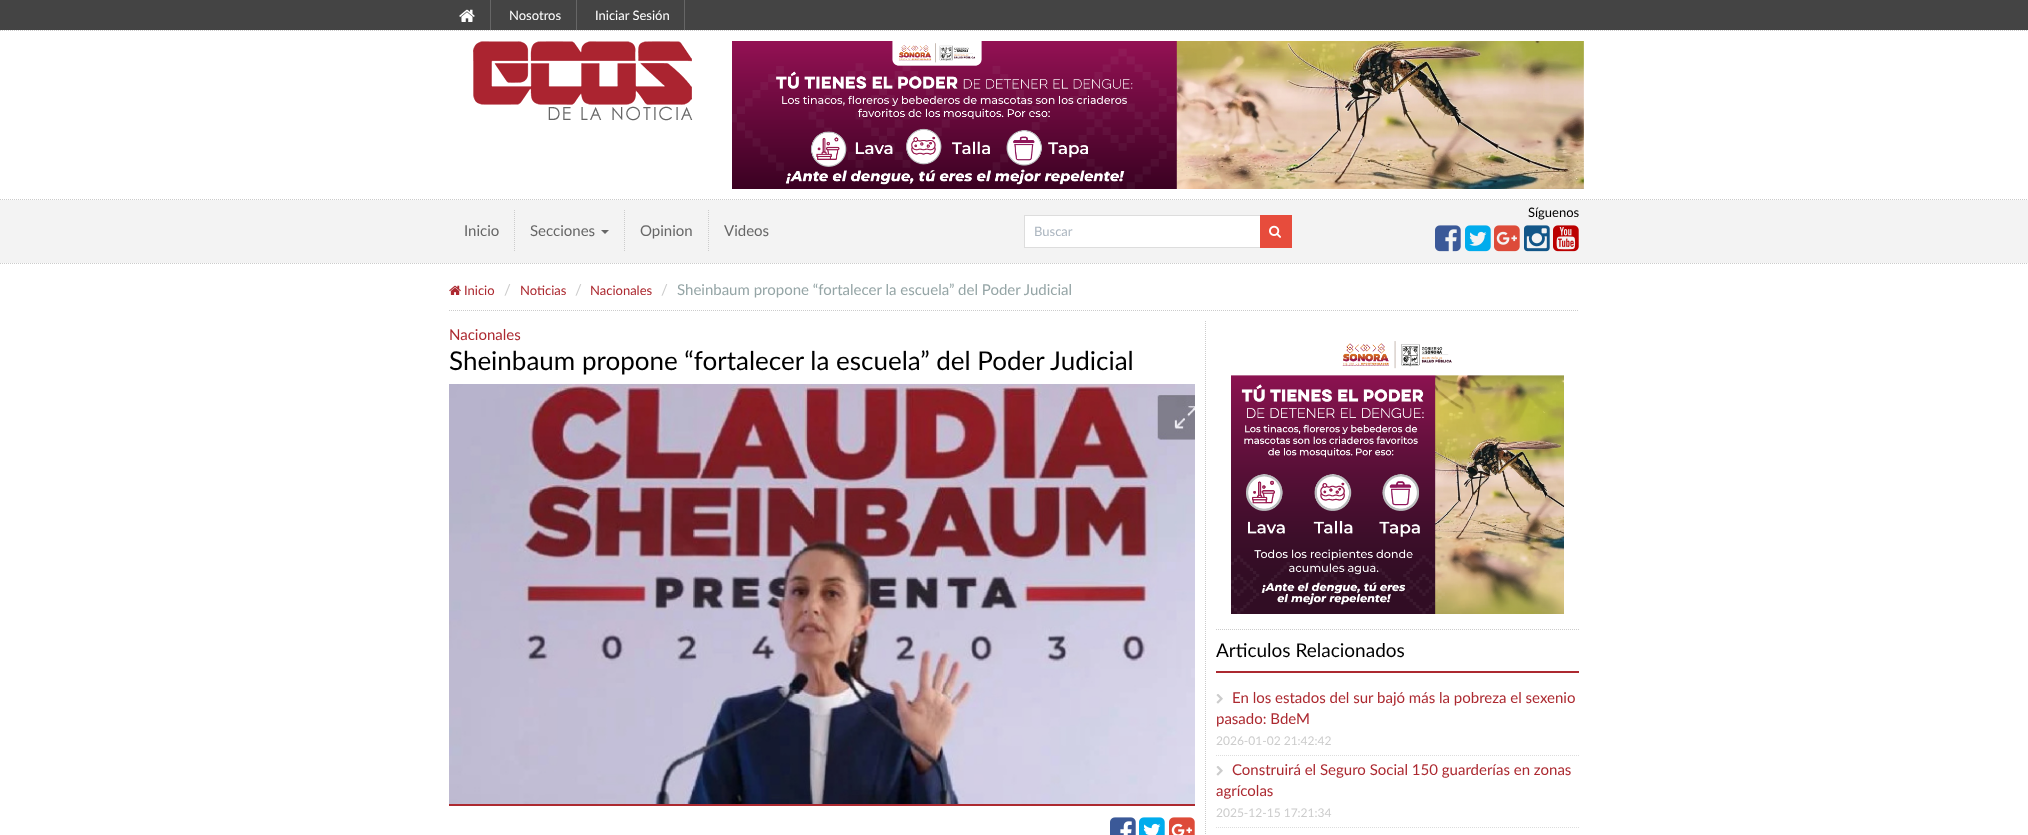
<svg xmlns="http://www.w3.org/2000/svg" width="2028" height="835" viewBox="0 0 2028 835">
  <rect width="100%" height="100%" fill="rgb(255,255,255)"/>
  <rect x="0" y="0" width="2028" height="30" fill="rgb(68,68,68)"/>
  <rect x="490" y="0" width="1" height="30" fill="rgb(102,102,102)"/>
  <image x="459" y="9" width="16" height="13" href="pic1.png"/>
  <rect x="576" y="0" width="1" height="30" fill="rgb(102,102,102)"/>
  <text x="509" y="20" font-family="Lato" font-size="13" fill="rgb(255,255,255)">Nosotros</text>
  <rect x="684" y="0" width="1" height="30" fill="rgb(102,102,102)"/>
  <text x="595" y="20" font-family="Lato" font-size="13" fill="rgb(255,255,255)">Iniciar Sesión</text>
  <path d="M0 30.5H2028" fill="none" stroke="rgb(204,204,204)" stroke-dasharray="1 1"/>
  <path d="M0 199.5H2028" fill="none" stroke="rgb(204,204,204)" stroke-dasharray="1 1"/>
  <image x="473" y="41" width="220" height="80" href="pic2.png"/>
  <image x="732" y="41" width="852" height="148" href="pic3.png"/>
  <path d="M0 263.5H2028" fill="none" stroke="rgb(204,204,204)" stroke-dasharray="1 1"/>
  <rect x="0" y="200" width="2028" height="63" fill="rgb(243,243,243)"/>
  <text x="1528" y="217" font-family="Lato" font-size="13" fill="rgb(0,0,0)">Síguenos</text>
  <image x="1435" y="225" width="26" height="27" href="pic4.png"/>
  <image x="1465" y="225" width="26" height="27" href="pic5.png"/>
  <image x="1494" y="225" width="26" height="27" href="pic6.png"/>
  <image x="1524" y="225" width="26" height="27" href="pic7.png"/>
  <image x="1553" y="225" width="26" height="27" href="pic8.png"/>
  <text x="464" y="236" font-family="Lato" font-size="15" fill="rgb(102,102,102)">Inicio</text>
  <path d="M514.5 210V251" fill="none" stroke="rgb(204,204,204)" stroke-dasharray="1 1"/>
  <text x="530" y="236" font-family="Lato" font-size="15" fill="rgb(102,102,102)">Secciones</text>
  <path d="M601 230H609L605 234Z" fill="rgb(102,102,102)"/>
  <path d="M624.5 210V251" fill="none" stroke="rgb(204,204,204)" stroke-dasharray="1 1"/>
  <text x="640" y="236" font-family="Lato" font-size="15" fill="rgb(102,102,102)">Opinion</text>
  <path d="M708.5 210V251" fill="none" stroke="rgb(204,204,204)" stroke-dasharray="1 1"/>
  <text x="724" y="236" font-family="Lato" font-size="15" fill="rgb(102,102,102)">Videos</text>
  <rect x="1025" y="216" width="235" height="31" fill="rgb(255,255,255)"/>
  <rect x="1024" y="215" width="236" height="1" fill="rgb(221,221,221)"/>
  <rect x="1024" y="247" width="236" height="1" fill="rgb(221,221,221)"/>
  <rect x="1024" y="215" width="1" height="33" fill="rgb(221,221,221)"/>
  <text x="1034" y="236" font-family="Lato" font-size="13" fill="rgb(172,182,192)">Buscar</text>
  <rect x="1260" y="215" width="32" height="33" fill="rgb(231,76,60)"/>
  <image x="1269" y="225" width="12" height="13" href="pic9.png"/>
  <image x="449" y="285" width="12" height="10" href="pic10.png"/>
  <text x="464" y="295" font-family="Lato" font-size="13" fill="rgb(172,41,48)">Inicio</text>
  <text x="504" y="295" font-family="Lato" font-size="15" fill="rgb(204,204,204)">/</text>
  <text x="520" y="295" font-family="Lato" font-size="13" fill="rgb(172,41,48)">Noticias</text>
  <text x="575" y="295" font-family="Lato" font-size="15" fill="rgb(204,204,204)">/</text>
  <text x="590" y="295" font-family="Lato" font-size="13" fill="rgb(172,41,48)">Nacionales</text>
  <text x="661" y="295" font-family="Lato" font-size="15" fill="rgb(204,204,204)">/</text>
  <text x="677" y="295" font-family="Lato" font-size="15" fill="rgb(149,165,166)">Sheinbaum propone “fortalecer la escuela” del Poder Judicial</text>
  <path d="M449 310.5H1579" fill="none" stroke="rgb(204,204,204)" stroke-dasharray="1 1"/>
  <path d="M1205.5 321V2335" fill="none" stroke="rgb(204,204,204)" stroke-dasharray="1 1"/>
  <text x="449" y="340" font-family="Lato" font-size="15" fill="rgb(172,41,48)">Nacionales</text>
  <text x="449" y="370" font-family="Lato" font-size="26" fill="rgb(0,0,0)">Sheinbaum propone “fortalecer la escuela” del Poder Judicial</text>
  <rect x="449" y="804" width="746" height="2" fill="rgb(172,41,48)"/>
  <image x="449" y="384" width="746" height="420" href="pic11.png"/>
  <image x="1110" y="817" width="26" height="18" href="pic12.png"/>
  <image x="1139" y="817" width="26" height="18" href="pic13.png"/>
  <image x="1169" y="817" width="26" height="18" href="pic14.png"/>
  <path d="M1216 629.5H1579" fill="none" stroke="rgb(204,204,204)" stroke-dasharray="1 1"/>
  <image x="1231" y="341" width="333" height="273" href="pic15.png"/>
  <rect x="1216" y="671" width="363" height="2" fill="rgb(172,41,48)"/>
  <text x="1216" y="657" font-family="Lato" font-size="19" fill="rgb(0,0,0)">Articulos Relacionados</text>
  <path d="M1216 755.5H1579" fill="none" stroke="rgb(221,221,221)" stroke-dasharray="1 1"/>
  <image x="1216" y="694" width="7" height="10" href="pic16.png"/>
  <g font-family="Lato" font-size="15" fill="rgb(172,41,48)">
    <text x="1232" y="703">En los estados del sur bajó más la pobreza el sexenio</text>
    <text x="1216" y="724">pasado: BdeM</text>
  </g>
  <text x="1216" y="745" font-family="Lato" font-size="12" fill="rgb(204,204,204)">2026-01-02 21:42:42</text>
  <path d="M1216 827.5H1579" fill="none" stroke="rgb(221,221,221)" stroke-dasharray="1 1"/>
  <image x="1216" y="766" width="7" height="10" href="pic16.png"/>
  <g font-family="Lato" font-size="15" fill="rgb(172,41,48)">
    <text x="1232" y="775">Construirá el Seguro Social 150 guarderías en zonas</text>
    <text x="1216" y="796">agrícolas</text>
  </g>
  <text x="1216" y="817" font-family="Lato" font-size="12" fill="rgb(204,204,204)">2025-12-15 17:21:34</text>
</svg>
